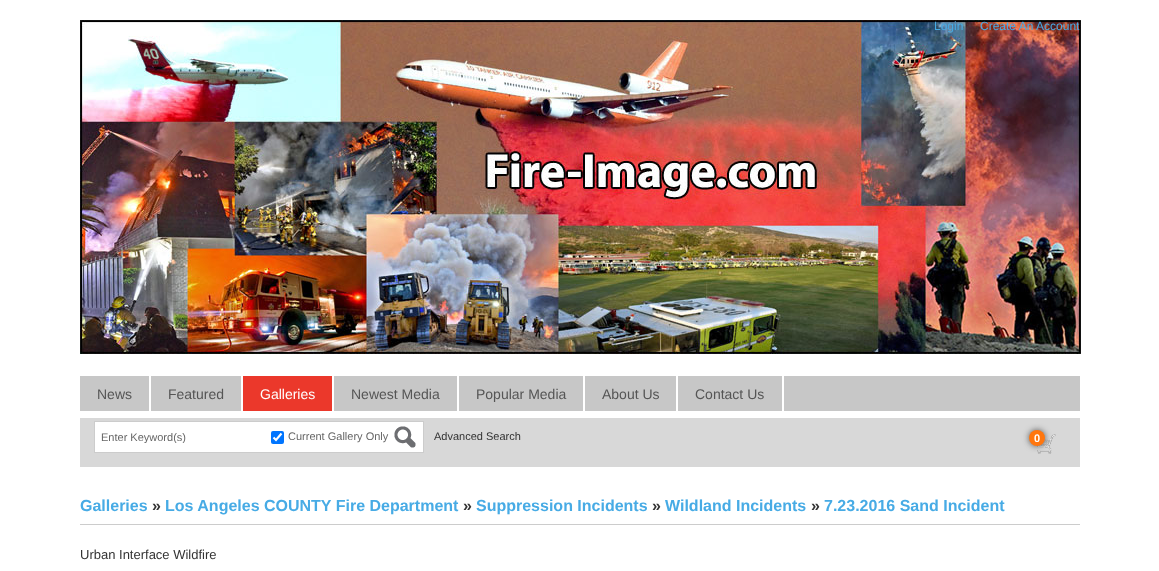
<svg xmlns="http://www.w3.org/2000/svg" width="1159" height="571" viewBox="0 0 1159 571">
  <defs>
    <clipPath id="clip1"><rect x="101" y="431" width="200" height="12"/></clipPath>
  </defs>
  <rect width="100%" height="100%" fill="rgb(255,255,255)"/>
  <image x="80" y="20" width="1001" height="334" href="pic1.png"/>
  <g font-family="Liberation Sans" font-size="12" fill="rgb(71,171,229)">
    <text x="934" y="30">Login</text>
    <text x="980" y="30">Create An Account</text>
  </g>
  <rect x="80" y="376" width="1000" height="35" fill="rgb(199,199,199)"/>
  <rect x="149" y="376" width="2" height="35" fill="rgb(255,255,255)"/>
  <text x="97" y="399" font-family="Liberation Sans" font-size="14" fill="rgb(85,85,85)">News</text>
  <rect x="241" y="376" width="2" height="35" fill="rgb(255,255,255)"/>
  <text x="168" y="399" font-family="Liberation Sans" font-size="14" fill="rgb(85,85,85)">Featured</text>
  <rect x="243" y="376" width="89" height="35" fill="rgb(235,56,43)"/>
  <rect x="332" y="376" width="2" height="35" fill="rgb(255,255,255)"/>
  <text x="260" y="399" font-family="Liberation Sans" font-size="14" fill="rgb(255,255,255)">Galleries</text>
  <rect x="457" y="376" width="2" height="35" fill="rgb(255,255,255)"/>
  <text x="351" y="399" font-family="Liberation Sans" font-size="14" fill="rgb(85,85,85)">Newest Media</text>
  <rect x="583" y="376" width="2" height="35" fill="rgb(255,255,255)"/>
  <text x="476" y="399" font-family="Liberation Sans" font-size="14" fill="rgb(85,85,85)">Popular Media</text>
  <rect x="676" y="376" width="2" height="35" fill="rgb(255,255,255)"/>
  <text x="602" y="399" font-family="Liberation Sans" font-size="14" fill="rgb(85,85,85)">About Us</text>
  <rect x="782" y="376" width="2" height="35" fill="rgb(255,255,255)"/>
  <text x="695" y="399" font-family="Liberation Sans" font-size="14" fill="rgb(85,85,85)">Contact Us</text>
  <rect x="80" y="418" width="1000" height="49" fill="rgb(216,216,216)"/>
  <rect x="95" y="422" width="170" height="30" fill="rgb(255,255,255)"/>
  <rect x="94.5" y="421.5" width="210" height="31" fill="none" stroke="rgb(204,204,204)"/>
  <g clip-path="url(#clip1)">
    <text x="101" y="441" font-family="Liberation Sans" font-size="11" fill="rgb(102,102,102)">Enter Keyword(s)</text>
  </g>
  <rect x="265" y="422" width="158" height="30" fill="rgb(255,255,255)"/>
  <rect x="305" y="421" width="119" height="1" fill="rgb(204,204,204)"/>
  <rect x="423" y="421" width="1" height="32" fill="rgb(204,204,204)"/>
  <rect x="305" y="452" width="119" height="1" fill="rgb(204,204,204)"/>
  <rect x="271" y="431" width="13" height="13" rx="2" fill="rgb(0,117,255)"/>
  <path d="M273.5 437.5L276 440L281.5 433.5" fill="none" stroke="rgb(255,255,255)" stroke-width="2.1"/>
  <text x="288" y="440" font-family="Liberation Sans" font-size="11" fill="rgb(102,102,102)">Current Gallery Only</text>
  <image x="394" y="426" width="22" height="22" href="pic2.png"/>
  <text x="434" y="440" font-family="Liberation Sans" font-size="11" fill="rgb(51,51,51)">Advanced Search</text>
  <image x="1037" y="434" width="19" height="20" href="pic3.png"/>
  <rect x="1029" y="430" width="16" height="16" rx="8" fill="rgb(85,85,85)" filter="blur(3px)"/>
  <circle cx="1037" cy="438" r="8" fill="rgb(255,118,14)"/>
  <text x="1034" y="442" font-family="Liberation Sans" font-size="11" font-weight="bold" fill="rgb(255,255,255)">0</text>
  <rect x="80" y="524" width="1000" height="1" fill="rgb(204,204,204)"/>
  <text x="80" y="511" font-family="Liberation Sans" font-size="16" font-weight="bold" fill="rgb(71,171,229)">Galleries</text>
  <text x="152" y="511" font-family="Liberation Sans" font-size="16" font-weight="bold" fill="rgb(51,51,51)">»</text>
  <text x="165" y="511" font-family="Liberation Sans" font-size="16" font-weight="bold" fill="rgb(71,171,229)">Los Angeles COUNTY Fire Department</text>
  <text x="463" y="511" font-family="Liberation Sans" font-size="16" font-weight="bold" fill="rgb(51,51,51)">»</text>
  <text x="476" y="511" font-family="Liberation Sans" font-size="16" font-weight="bold" fill="rgb(71,171,229)">Suppression Incidents</text>
  <text x="652" y="511" font-family="Liberation Sans" font-size="16" font-weight="bold" fill="rgb(51,51,51)">»</text>
  <text x="665" y="511" font-family="Liberation Sans" font-size="16" font-weight="bold" fill="rgb(71,171,229)">Wildland Incidents</text>
  <text x="811" y="511" font-family="Liberation Sans" font-size="16" font-weight="bold" fill="rgb(51,51,51)">»</text>
  <text x="824" y="511" font-family="Liberation Sans" font-size="16" font-weight="bold" fill="rgb(71,171,229)">7.23.2016 Sand Incident</text>
  <text x="80" y="559" font-family="Liberation Sans" font-size="13" fill="rgb(51,51,51)">Urban Interface Wildfire</text>
</svg>
